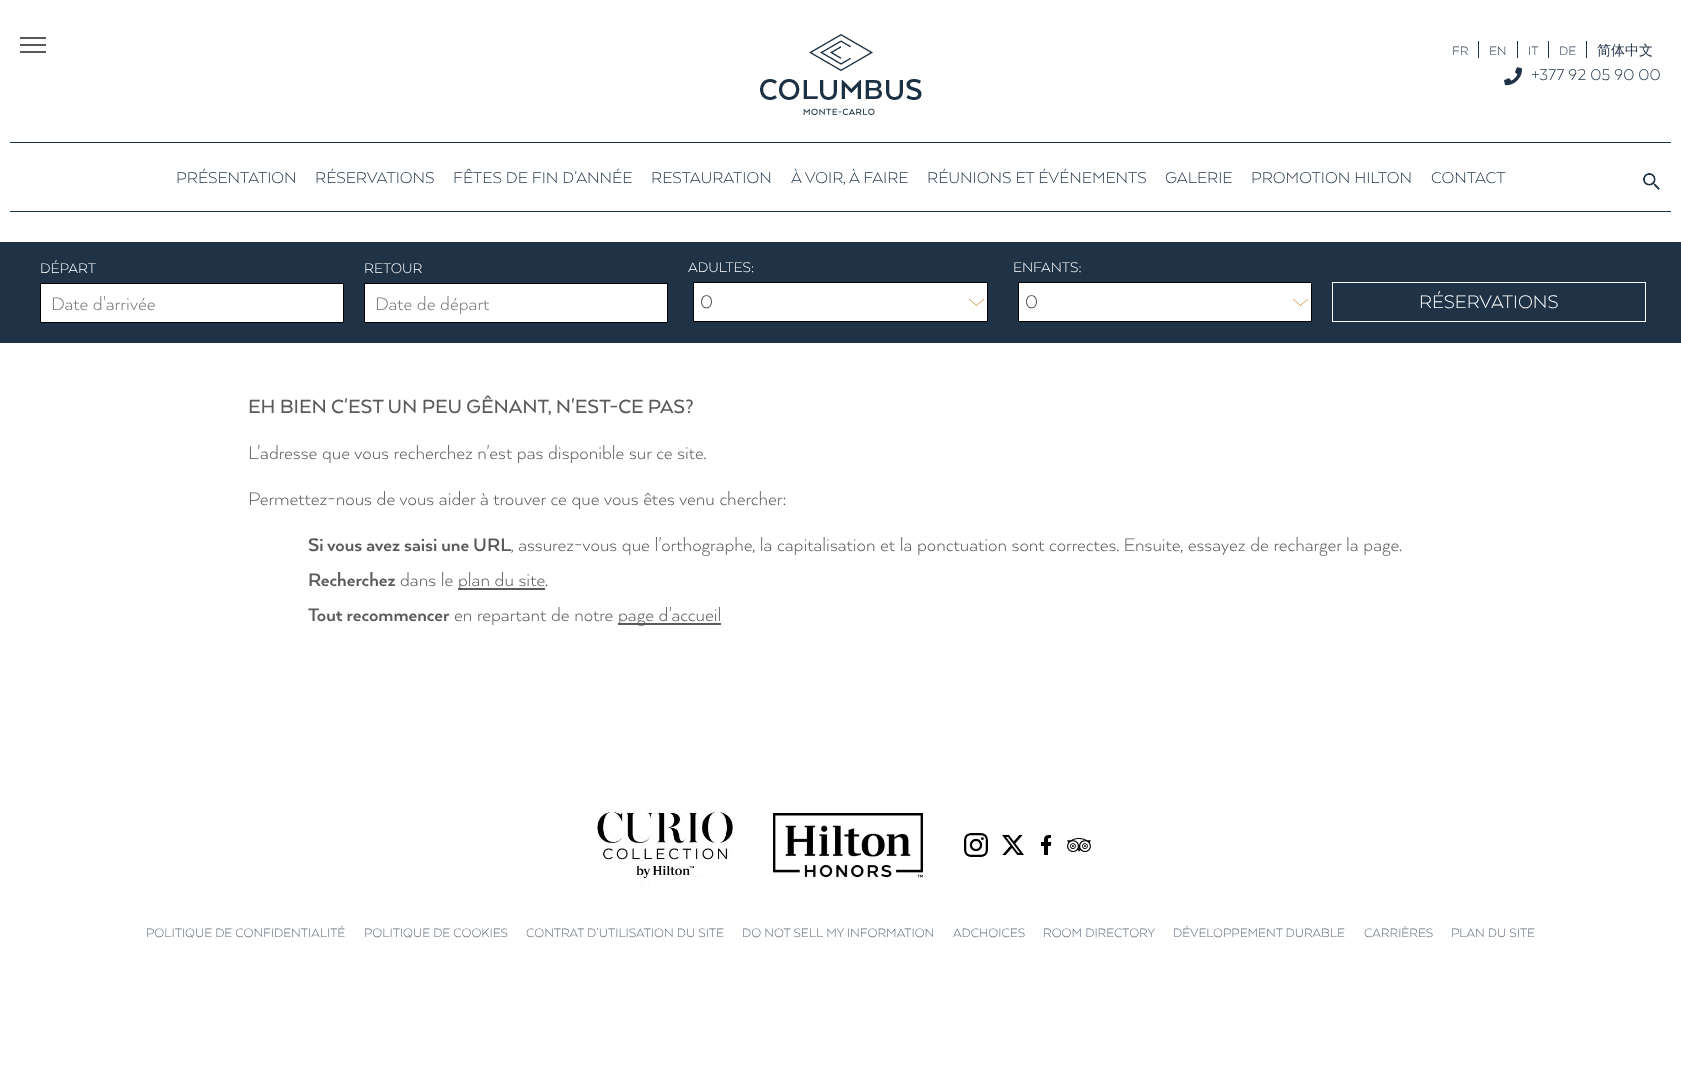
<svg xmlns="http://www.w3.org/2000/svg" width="1681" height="1077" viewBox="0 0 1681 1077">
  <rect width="100%" height="100%" fill="rgb(255,255,255)"/>
  <rect x="20" y="37" width="26" height="2" fill="rgb(88,88,88)"/>
  <rect x="20" y="44" width="26" height="2" fill="rgb(88,88,88)"/>
  <rect x="20" y="51" width="26" height="2" fill="rgb(88,88,88)"/>
  <image x="759" y="34" width="163" height="82" href="pic1.png"/>
  <text x="1452" y="55" font-family="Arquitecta" font-size="14" font-weight="300" fill="rgb(31,49,69)">FR</text>
  <rect x="1478" y="41" width="1" height="17" fill="rgb(31,49,69)"/>
  <text x="1489" y="55" font-family="Arquitecta" font-size="14" font-weight="300" fill="rgb(31,49,69)">EN</text>
  <rect x="1517" y="41" width="1" height="17" fill="rgb(31,49,69)"/>
  <text x="1528" y="55" font-family="Arquitecta" font-size="14" font-weight="300" fill="rgb(31,49,69)">IT</text>
  <rect x="1548" y="41" width="1" height="17" fill="rgb(31,49,69)"/>
  <text x="1559" y="55" font-family="Arquitecta" font-size="14" font-weight="300" fill="rgb(31,49,69)">DE</text>
  <rect x="1586" y="41" width="1" height="17" fill="rgb(31,49,69)"/>
  <text x="1597" y="55" font-family="WenQuanYi Zen Hei" font-size="14" font-weight="500" fill="rgb(31,49,69)">简体中文</text>
  <image x="1504" y="67" width="18" height="19" href="pic2.png"/>
  <text x="1531" y="80" font-family="Arquitecta" font-size="18" font-weight="300" fill="rgb(31,49,69)">+377 92 05 90 00</text>
  <rect x="10" y="142" width="1661" height="1" fill="rgb(31,49,69)"/>
  <rect x="10" y="211" width="1661" height="1" fill="rgb(31,49,69)"/>
  <g font-family="Arquitecta" font-size="18" font-weight="300" fill="rgb(31,49,69)">
    <text x="176" y="183">PRÉSENTATION</text>
    <text x="315" y="183">RÉSERVATIONS</text>
    <text x="453" y="183">FÊTES DE FIN D’ANNÉE</text>
    <text x="651" y="183">RESTAURATION</text>
    <text x="791" y="183">À VOIR, À FAIRE</text>
    <text x="927" y="183">RÉUNIONS ET ÉVÉNEMENTS</text>
    <text x="1165" y="183">GALERIE</text>
    <text x="1251" y="183">PROMOTION HILTON</text>
    <text x="1431" y="183">CONTACT</text>
  </g>
  <image x="1643" y="173" width="17" height="17" href="pic3.png"/>
  <rect x="0" y="242" width="1681" height="101" fill="rgb(32,50,70)"/>
  <text x="40" y="273" font-family="Arquitecta" font-size="16" font-weight="300" fill="rgb(255,255,255)">DÉPART</text>
  <rect x="40.5" y="283.5" width="303" height="39" fill="rgb(255,255,255)" stroke="rgb(0,0,0)"/>
  <text x="51" y="310" font-family="Arquitecta" font-size="21" font-weight="300" fill="rgb(117,117,117)">Date d'arrivée</text>
  <text x="364" y="273" font-family="Arquitecta" font-size="16" font-weight="300" fill="rgb(255,255,255)">RETOUR</text>
  <rect x="364.5" y="283.5" width="303" height="39" fill="rgb(255,255,255)" stroke="rgb(0,0,0)"/>
  <text x="375" y="310" font-family="Arquitecta" font-size="21" font-weight="300" fill="rgb(117,117,117)">Date de départ</text>
  <text x="688" y="272" font-family="Arquitecta" font-size="16" font-weight="300" fill="rgb(255,255,255)">ADULTES:</text>
  <rect x="693.5" y="282.5" width="294" height="39" fill="rgb(255,255,255)" stroke="rgb(0,0,0)"/>
  <text x="700" y="308" font-family="Arquitecta" font-size="21" font-weight="300" fill="rgb(68,68,68)">0</text>
  <image x="969" y="299" width="15" height="7" href="pic4.png"/>
  <text x="1013" y="272" font-family="Arquitecta" font-size="16" font-weight="300" fill="rgb(255,255,255)">ENFANTS:</text>
  <rect x="1018.5" y="282.5" width="293" height="39" fill="rgb(255,255,255)" stroke="rgb(0,0,0)"/>
  <text x="1025" y="308" font-family="Arquitecta" font-size="21" font-weight="300" fill="rgb(68,68,68)">0</text>
  <image x="1293" y="299" width="15" height="7" href="pic4.png"/>
  <rect x="1332.5" y="282.5" width="313" height="39" fill="none" stroke="rgb(255,255,255)"/>
  <text x="1419" y="308" font-family="Arquitecta" font-size="21" font-weight="300" fill="rgb(255,255,255)">RÉSERVATIONS</text>
  <text x="248" y="413" font-family="Arquitecta" font-size="22" font-weight="500" fill="rgb(90,90,90)">EH BIEN C'EST UN PEU GÊNANT, N'EST-CE PAS?</text>
  <g font-family="Arquitecta" font-size="21" font-weight="300" fill="rgb(90,90,90)">
    <text x="248" y="459">L'adresse que vous recherchez n'est pas disponible sur ce site.</text>
    <text x="248" y="505">Permettez-nous de vous aider à trouver ce que vous êtes venu chercher:</text>
  </g>
  <text x="308" y="551" font-family="Arquitecta" font-size="21" font-weight="bold" fill="rgb(90,90,90)">Si vous avez saisi une URL</text>
  <text x="511" y="551" font-family="Arquitecta" font-size="21" font-weight="300" fill="rgb(90,90,90)">, assurez-vous que l'orthographe, la capitalisation et la ponctuation sont correctes. Ensuite, essayez de recharger la page.</text>
  <text x="308" y="586" font-family="Arquitecta" font-size="21" font-weight="bold" fill="rgb(90,90,90)">Recherchez</text>
  <text x="400" y="586" font-family="Arquitecta" font-size="21" font-weight="300" fill="rgb(90,90,90)">dans le</text>
  <rect x="458" y="588" width="87" height="2" fill="rgb(90,90,90)"/>
  <text x="458" y="586" font-family="Arquitecta" font-size="21" font-weight="300" fill="rgb(90,90,90)">plan du site.</text>
  <text x="308" y="621" font-family="Arquitecta" font-size="21" font-weight="bold" fill="rgb(90,90,90)">Tout recommencer</text>
  <text x="454" y="621" font-family="Arquitecta" font-size="21" font-weight="300" fill="rgb(90,90,90)">en repartant de notre</text>
  <rect x="618" y="623" width="103" height="2" fill="rgb(90,90,90)"/>
  <text x="618" y="621" font-family="Arquitecta" font-size="21" font-weight="300" fill="rgb(90,90,90)">page d'accueil</text>
  <image x="594" y="810" width="140" height="77" href="pic5.png"/>
  <image x="773" y="813" width="150" height="65" href="pic6.png"/>
  <image x="964" y="833" width="24" height="24" href="pic7.png"/>
  <image x="1002" y="835" width="22" height="20" href="pic8.png"/>
  <image x="1041" y="835" width="11" height="20" href="pic9.png"/>
  <image x="1067" y="838" width="24" height="14" href="pic10.png"/>
  <g font-family="Arquitecta" font-size="14" font-weight="300" fill="rgb(95,106,121)">
    <text x="146" y="937">POLITIQUE DE CONFIDENTIALITÉ</text>
    <text x="364" y="937">POLITIQUE DE COOKIES</text>
    <text x="526" y="937">CONTRAT D’UTILISATION DU SITE</text>
    <text x="742" y="937">DO NOT SELL MY INFORMATION</text>
    <text x="953" y="937">ADCHOICES</text>
    <text x="1043" y="937">ROOM DIRECTORY</text>
    <text x="1173" y="937">DÉVELOPPEMENT DURABLE</text>
    <text x="1364" y="937">CARRIÈRES</text>
    <text x="1451" y="937">PLAN DU SITE</text>
  </g>
</svg>
